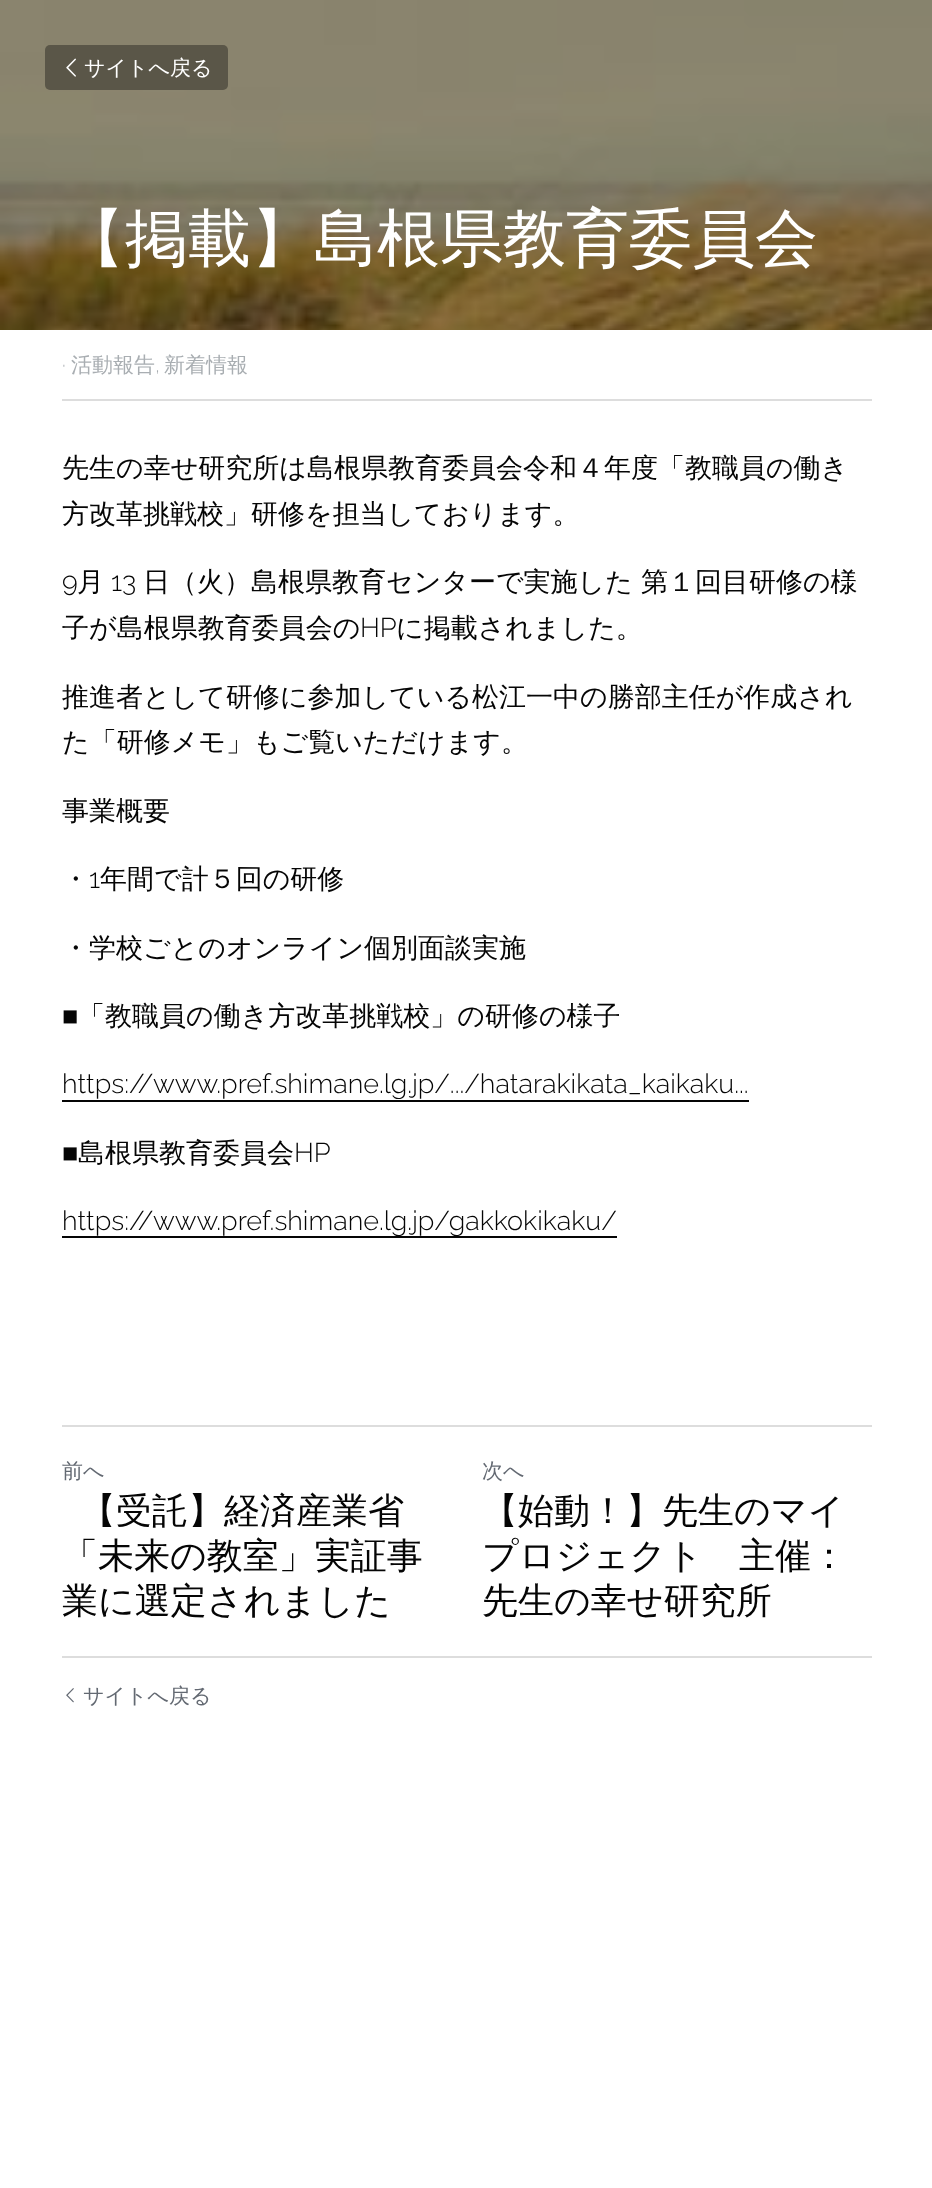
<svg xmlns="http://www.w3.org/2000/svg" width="932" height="2188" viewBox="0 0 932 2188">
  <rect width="100%" height="100%" fill="rgb(255,255,255)"/>
  <image x="0" y="0" width="932" height="330" href="pic1.png"/>
  <rect x="45" y="45" width="183" height="45" rx="5" fill="rgb(90,86,72)"/>
  <image x="66" y="58" width="10" height="19" href="pic2.png"/>
  <text x="84" y="75" font-family="WenQuanYi Zen Hei" font-size="21" font-weight="500" fill="rgb(255,255,255)">サイトへ戻る</text>
  <text x="62" y="260" font-family="WenQuanYi Zen Hei" font-size="63" font-weight="500" fill="rgb(255,255,255)">【掲載】島根県教育委員会</text>
  <rect x="62" y="399" width="810" height="2" fill="rgb(221,221,221)"/>
  <text x="62" y="372" font-family="Raleway" font-size="21" font-weight="300" fill="rgb(169,174,178)">·</text>
  <text x="71" y="372" font-family="WenQuanYi Zen Hei" font-size="21" font-weight="500" fill="rgb(169,174,178)">活動報告</text>
  <text x="155" y="372" font-family="Raleway" font-size="21" font-weight="300" fill="rgb(169,174,178)">,</text>
  <text x="164" y="372" font-family="WenQuanYi Zen Hei" font-size="21" font-weight="500" fill="rgb(169,174,178)">新着情報</text>
  <g font-family="WenQuanYi Zen Hei" font-size="27" font-weight="500" fill="rgb(5,5,5)">
    <text>
      <tspan x="62" y="477">先生の幸せ研究所は島根県教育委員会令和４年度「教職員の働き</tspan>
      <tspan x="62" y="523">方改革挑戦校」研修を担当しております。</tspan>
    </text>
  </g>
  <text x="62" y="591" font-family="Raleway" font-size="27" font-weight="300" fill="rgb(5,5,5)">9</text>
  <text x="77" y="591" font-family="WenQuanYi Zen Hei" font-size="27" font-weight="500" fill="rgb(5,5,5)">月</text>
  <text x="111" y="591" font-family="Raleway" font-size="27" font-weight="300" fill="rgb(5,5,5)">13</text>
  <g font-family="WenQuanYi Zen Hei" font-size="27" font-weight="500" fill="rgb(5,5,5)">
    <text x="143" y="591">日（火）島根県教育センターで実施した 第１回目研修の様</text>
    <text x="62" y="637">子が島根県教育委員会の</text>
  </g>
  <text x="360" y="637" font-family="Raleway" font-size="27" font-weight="300" fill="rgb(5,5,5)">HP</text>
  <g font-family="WenQuanYi Zen Hei" font-size="27" font-weight="500" fill="rgb(5,5,5)">
    <text x="396" y="637">に掲載されました。</text>
    <text>
      <tspan x="62" y="706">推進者として研修に参加している松江一中の勝部主任が作成され</tspan>
      <tspan x="62" y="751">た「研修メモ」もご覧いただけます。</tspan>
    </text>
    <text x="62" y="820">事業概要</text>
    <text x="62" y="888">・</text>
  </g>
  <text x="89" y="888" font-family="Raleway" font-size="27" font-weight="300" fill="rgb(5,5,5)">1</text>
  <g font-family="WenQuanYi Zen Hei" font-size="27" font-weight="500" fill="rgb(5,5,5)">
    <text x="100" y="888">年間で計５回の研修</text>
    <text x="62" y="957">・学校ごとのオンライン個別面談実施</text>
  </g>
  <text x="62" y="1025" font-family="Liberation Sans" font-size="27" fill="rgb(5,5,5)">■</text>
  <text x="78" y="1025" font-family="WenQuanYi Zen Hei" font-size="27" font-weight="500" fill="rgb(5,5,5)">「教職員の働き方改革挑戦校」の研修の様子</text>
  <text x="62" y="1093" font-family="Raleway" font-size="27" font-weight="300" fill="rgb(5,5,5)">https://www.pref.shimane.lg.jp/.../hatarakikata_kaikaku...</text>
  <rect x="62" y="1100" width="687" height="2" fill="rgb(5,5,5)"/>
  <text x="62" y="1162" font-family="Liberation Sans" font-size="27" fill="rgb(5,5,5)">■</text>
  <text x="78" y="1162" font-family="WenQuanYi Zen Hei" font-size="27" font-weight="500" fill="rgb(5,5,5)">島根県教育委員会</text>
  <g font-family="Raleway" font-size="27" font-weight="300" fill="rgb(5,5,5)">
    <text x="294" y="1162">HP</text>
    <text x="62" y="1230">https://www.pref.shimane.lg.jp/gakkokikaku/</text>
  </g>
  <rect x="62" y="1236" width="555" height="2" fill="rgb(5,5,5)"/>
  <rect x="62" y="1425" width="810" height="2" fill="rgb(221,221,221)"/>
  <text x="62" y="1478" font-family="WenQuanYi Zen Hei" font-size="21" font-weight="500" fill="rgb(99,105,114)">前へ</text>
  <g font-family="WenQuanYi Zen Hei" font-size="36" font-weight="500" fill="rgb(5,5,5)">
    <text x="80" y="1523">【受託】経済産業省</text>
    <text>
      <tspan x="62" y="1568">「未来の教室」実証事</tspan>
      <tspan x="62" y="1613">業に選定されました</tspan>
    </text>
  </g>
  <text x="482" y="1478" font-family="WenQuanYi Zen Hei" font-size="21" font-weight="500" fill="rgb(99,105,114)">次へ</text>
  <g font-family="WenQuanYi Zen Hei" font-size="36" font-weight="500" fill="rgb(5,5,5)">
    <text>
      <tspan x="482" y="1523">【始動！】先生のマイ</tspan>
      <tspan x="482" y="1568">プロジェクト　主催：</tspan>
      <tspan x="482" y="1613">先生の幸せ研究所</tspan>
    </text>
  </g>
  <rect x="62" y="1656" width="810" height="2" fill="rgb(221,221,221)"/>
  <image x="66" y="1688" width="8" height="15" href="pic3.png"/>
  <text x="83" y="1703" font-family="WenQuanYi Zen Hei" font-size="21" font-weight="500" fill="rgb(99,105,114)">サイトへ戻る</text>
</svg>
